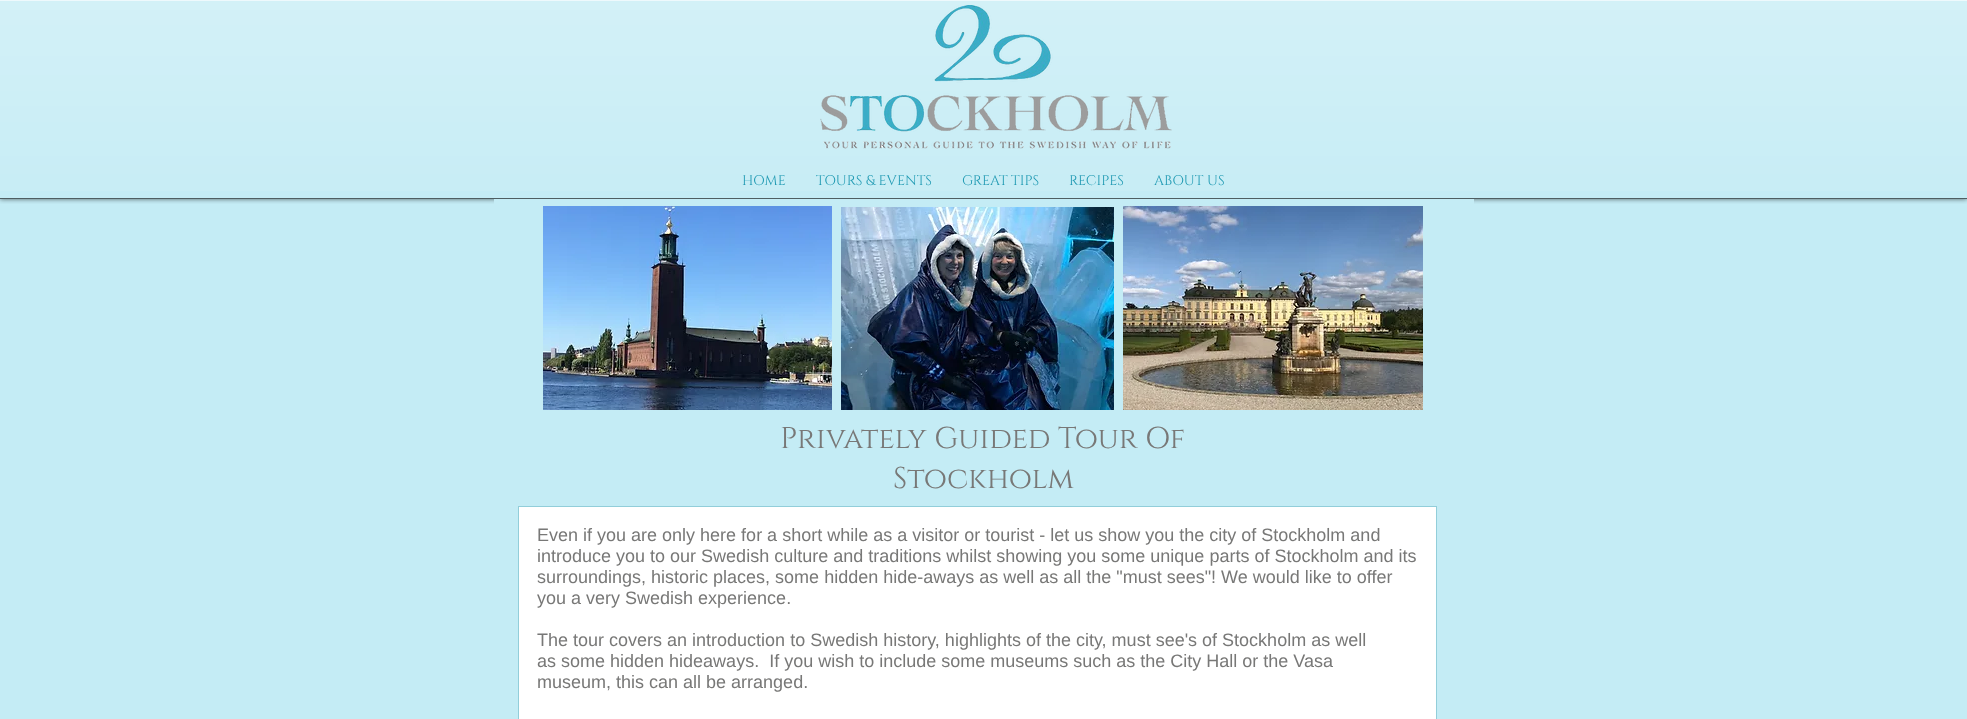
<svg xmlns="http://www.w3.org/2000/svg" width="1967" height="719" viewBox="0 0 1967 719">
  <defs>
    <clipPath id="clip1"><rect x="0" y="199" width="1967" height="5"/></clipPath>
  </defs>
  <rect width="100%" height="100%" fill="rgb(196,236,245)"/>
  <g clip-path="url(#clip1)">
    <rect x="0" y="0" width="1967" height="199" fill="rgba(0,0,0,0.6)" filter="blur(2.5px)"/>
  </g>
  <image x="0" y="1" width="1967" height="190" href="pic1.png"/>
  <rect x="0" y="198" width="1967" height="1" fill="rgb(78,94,98)"/>
  <rect x="0" y="0" width="1967" height="1" fill="rgb(238,249,252)"/>
  <image x="820" y="5" width="352" height="127" href="pic2.png"/>
  <image x="823" y="141" width="348" height="8" href="pic3.png"/>
  <g font-family="Cinzel" font-size="14" fill="rgb(32,154,179)">
    <text x="742" y="185">HOME</text>
    <text x="816" y="185">TOURS &amp; EVENTS</text>
    <text x="962" y="185">GREAT TIPS</text>
    <text x="1069" y="185">RECIPES</text>
    <text x="1154" y="185">ABOUT US</text>
  </g>
  <rect x="494" y="199" width="980" height="5" fill="rgb(196,236,245)"/>
  <image x="543" y="206" width="289" height="204" href="pic4.png"/>
  <image x="841" y="207" width="273" height="203" href="pic5.png"/>
  <image x="1123" y="206" width="300" height="204" href="pic6.png"/>
  <g font-family="Cinzel" font-size="30" fill="rgb(120,120,119)">
    <text x="780" y="448">Privately Guided Tour Of</text>
    <text x="893" y="488">Stockholm</text>
  </g>
  <rect x="518.5" y="506.5" width="918" height="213" fill="rgb(255,255,255)" stroke="rgb(146,206,218)"/>
  <g font-family="Liberation Sans" font-size="18" fill="rgb(120,120,119)">
    <text>
      <tspan x="537" y="541">Even if you are only here for a short while as a visitor or tourist - let us show you the city of Stockholm and</tspan>
      <tspan x="537" y="562">introduce you to our Swedish culture and traditions whilst showing you some unique parts of Stockholm and its</tspan>
      <tspan x="537" y="583">surroundings, historic places, some hidden hide-aways as well as all the "must sees"! We would like to offer</tspan>
      <tspan x="537" y="604">you a very Swedish experience.</tspan>
    </text>
    <text xml:space="preserve"><tspan x="537" y="646">The tour covers an introduction to Swedish history, highlights of the city, must see's of Stockholm as well</tspan><tspan x="537" y="667">as some hidden hideaways.  If you wish to include some museums such as the City Hall or the Vasa</tspan><tspan x="537" y="688">museum, this can all be arranged.</tspan></text>
  </g>
</svg>
